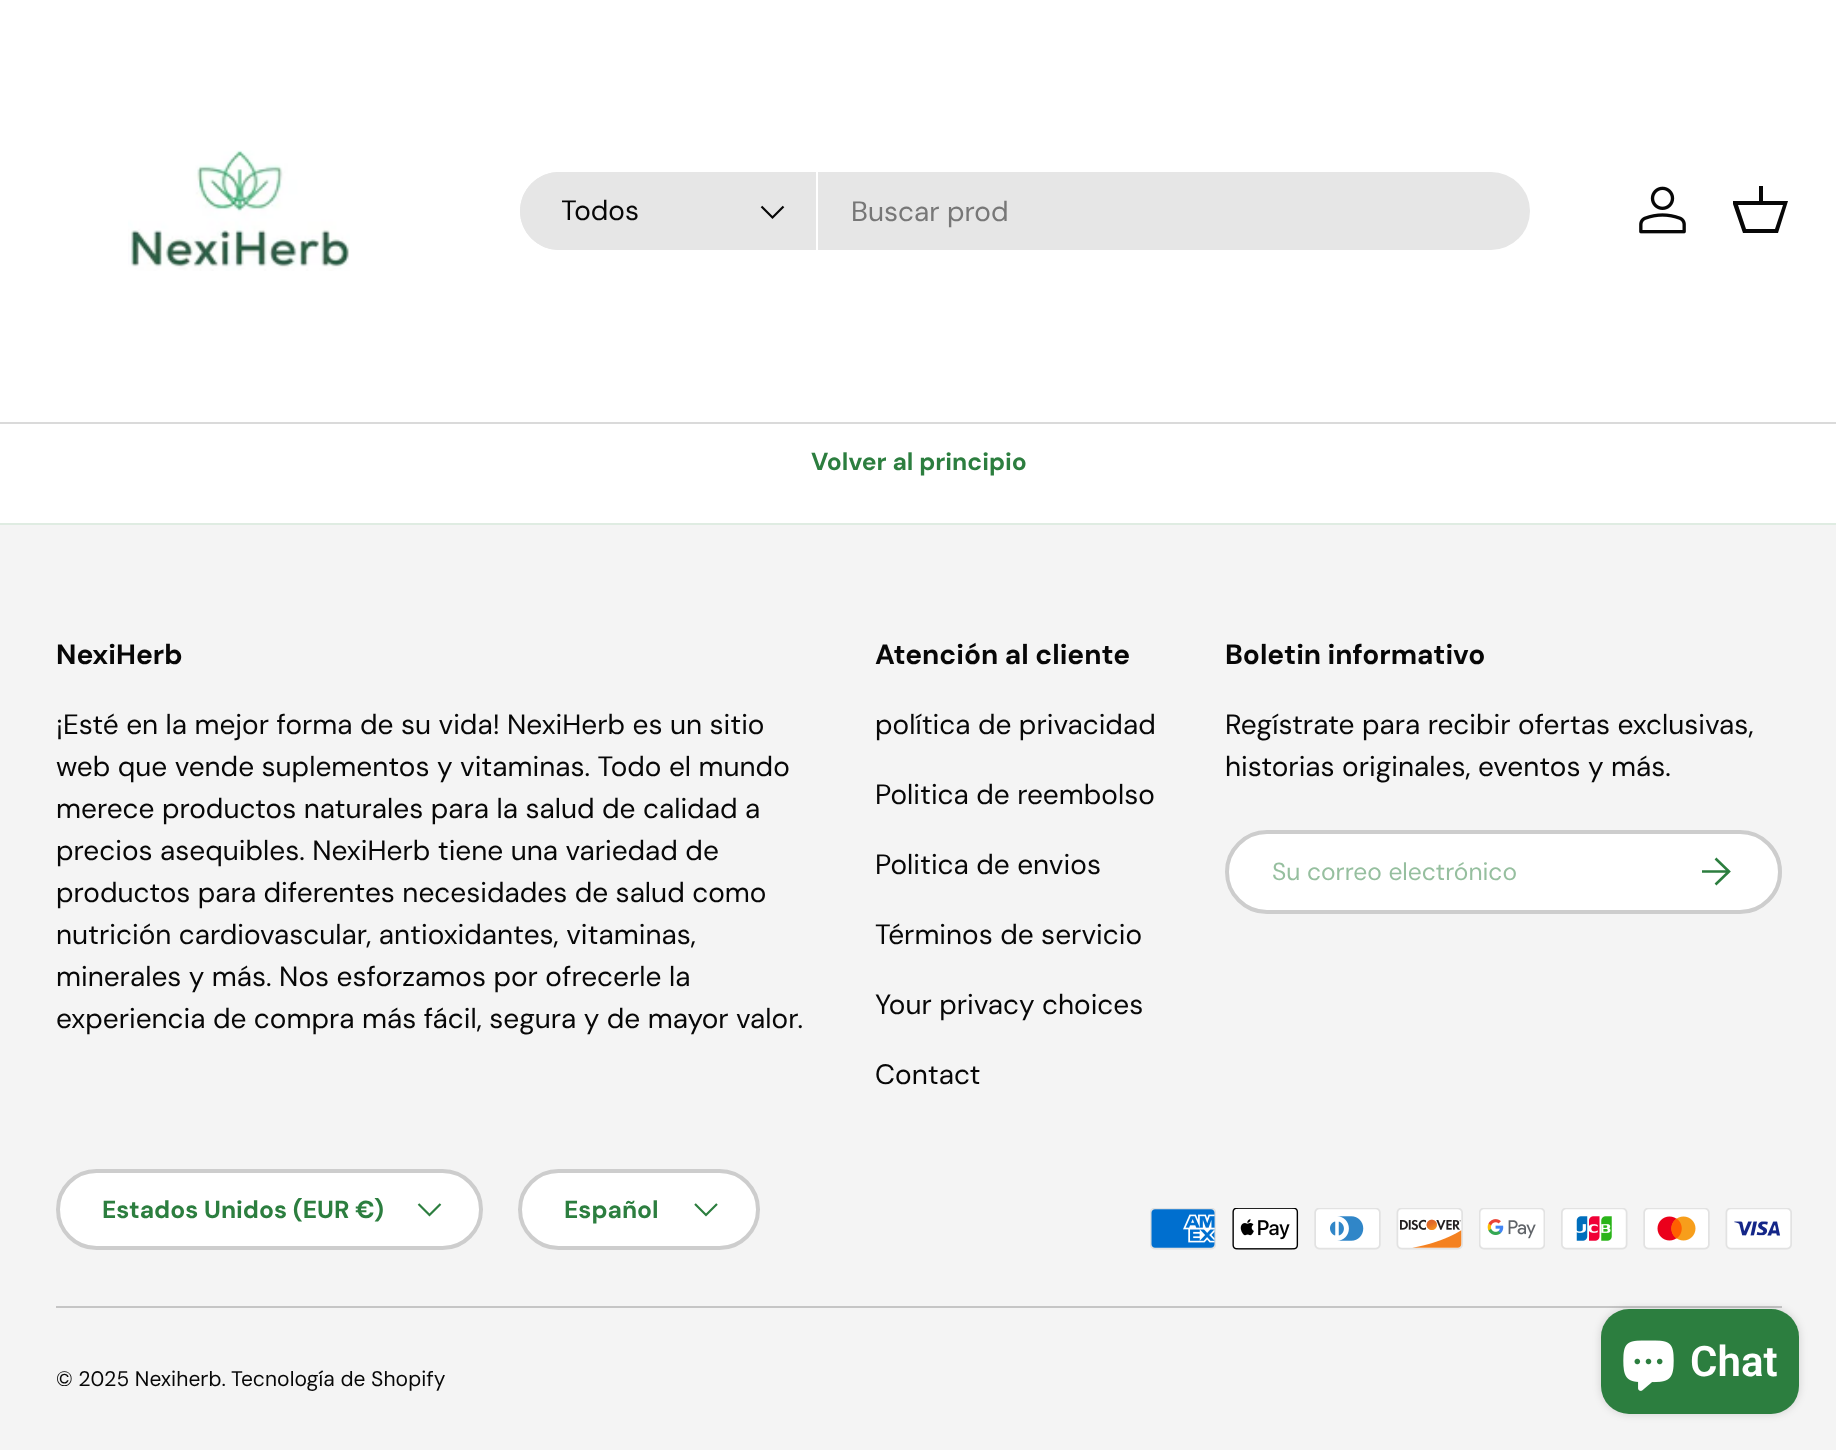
<svg xmlns="http://www.w3.org/2000/svg" width="1836" height="1450" viewBox="0 0 1836 1450">
  <defs>
    <clipPath id="clip1"><rect x="562" y="191" width="77" height="42"/></clipPath>
    <clipPath id="clip2"><rect x="1733" y="182" width="56" height="56"/></clipPath>
  </defs>
  <rect width="100%" height="100%" fill="rgb(255,255,255)"/>
  <rect x="0" y="422" width="1836" height="2" fill="rgb(218,218,218)"/>
  <image x="128" y="150" width="222" height="121" href="pic1.png"/>
  <rect x="520" y="172" width="1010" height="78" rx="39" fill="rgb(230,230,230)"/>
  <path d="M559 172H817V250H559C537.5 250 520 232.5 520 211C520 189.5 537.5 172 559 172Z" fill="rgb(230,230,230)"/>
  <rect x="816" y="172" width="2" height="78" fill="rgb(255,255,255)"/>
  <g clip-path="url(#clip1)">
    <text x="561" y="220" font-family="DM Sans" font-size="28" fill="rgb(7,7,7)">Todos</text>
  </g>
  <path d="M783.5 206.5L772.5 217.5L761.5 206.5" fill="none" stroke="rgb(7,7,7)" stroke-width="2.2"/>
  <text x="851" y="221" font-family="DM Sans" font-size="28" fill="rgb(119,119,119)">Buscar prod</text>
  <image x="1639" y="186" width="47" height="48" href="pic2.png"/>
  <g clip-path="url(#clip2)">
    <path d="M1759 201V186H1763V201H1788L1778 233H1743L1732 201ZM1738 205L1746 229H1775L1783 205Z" fill="rgb(7,7,7)"/>
  </g>
  <rect x="0" y="523" width="1836" height="2" fill="rgb(223,236,226)"/>
  <text x="811" y="470" font-family="DM Sans" font-size="24.6" font-weight="bold" fill="rgb(44,126,63)">Volver al principio</text>
  <rect x="0" y="525" width="1836" height="925" fill="rgb(244,244,244)"/>
  <text x="56" y="664" font-family="'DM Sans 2'" font-size="28" font-weight="bold" fill="rgb(7,7,7)">NexiHerb</text>
  <g font-family="DM Sans" font-size="28" fill="rgb(7,7,7)">
    <text>
      <tspan x="56" y="734">¡Esté en la mejor forma de su vida! NexiHerb es un sitio</tspan>
      <tspan x="56" y="776">web que vende suplementos y vitaminas. Todo el mundo</tspan>
      <tspan x="56" y="818">merece productos naturales para la salud de calidad a</tspan>
      <tspan x="56" y="860">precios asequibles. NexiHerb tiene una variedad de</tspan>
      <tspan x="56" y="902">productos para diferentes necesidades de salud como</tspan>
      <tspan x="56" y="944">nutrición cardiovascular, antioxidantes, vitaminas,</tspan>
      <tspan x="56" y="986">minerales y más. Nos esforzamos por ofrecerle la</tspan>
      <tspan x="56" y="1028">experiencia de compra más fácil, segura y de mayor valor.</tspan>
    </text>
  </g>
  <text x="875" y="664" font-family="'DM Sans 2'" font-size="28" font-weight="bold" fill="rgb(7,7,7)">Atención al cliente</text>
  <g font-family="DM Sans" font-size="28" fill="rgb(7,7,7)">
    <text x="875" y="734">política de privacidad</text>
    <text x="875" y="804">Politica de reembolso</text>
    <text x="875" y="874">Politica de envios</text>
    <text x="875" y="944">Términos de servicio</text>
    <text x="875" y="1014">Your privacy choices</text>
    <text x="875" y="1084">Contact</text>
  </g>
  <text x="1225" y="664" font-family="'DM Sans 2'" font-size="28" font-weight="bold" fill="rgb(7,7,7)">Boletin informativo</text>
  <g font-family="DM Sans" font-size="28" fill="rgb(7,7,7)">
    <text>
      <tspan x="1225" y="734">Regístrate para recibir ofertas exclusivas,</tspan>
      <tspan x="1225" y="776">historias originales, eventos y más.</tspan>
    </text>
  </g>
  <rect x="1225" y="830" width="557" height="84" rx="42" fill="rgb(255,255,255)"/>
  <rect x="1227" y="832" width="553" height="80" rx="40" fill="none" stroke="rgba(7,7,7,0.2)" stroke-width="4"/>
  <text x="1272" y="880" font-family="'DM Sans 2'" font-size="24.6" fill="rgb(150,191,159)">Su correo electrónico</text>
  <path d="M1702 871.5H1728M1715.5 858.5L1729 871.5L1715.5 884.5" fill="none" stroke="rgb(44,126,63)" stroke-width="2.6"/>
  <rect x="56" y="1169" width="427" height="81" rx="40.5" fill="rgb(255,255,255)"/>
  <rect x="58" y="1171" width="423" height="77" rx="38.5" fill="none" stroke="rgba(7,7,7,0.2)" stroke-width="4"/>
  <text x="102" y="1218" font-family="DM Sans" font-size="24.6" font-weight="bold" fill="rgb(44,126,63)">Estados Unidos (EUR €)</text>
  <path d="M440.5 1204L429.5 1215L418.5 1204" fill="none" stroke="rgb(44,126,63)" stroke-width="2.2"/>
  <rect x="518" y="1169" width="242" height="81" rx="40.5" fill="rgb(255,255,255)"/>
  <rect x="520" y="1171" width="238" height="77" rx="38.5" fill="none" stroke="rgba(7,7,7,0.2)" stroke-width="4"/>
  <text x="564" y="1218" font-family="DM Sans" font-size="24.6" font-weight="bold" fill="rgb(44,126,63)">Español</text>
  <path d="M717 1204L706 1215L695 1204" fill="none" stroke="rgb(44,126,63)" stroke-width="2.2"/>
  <image x="1150" y="1208" width="66" height="42" href="pic3.png"/>
  <image x="1232" y="1208" width="67" height="42" href="pic4.png"/>
  <image x="1314" y="1208" width="67" height="42" href="pic5.png"/>
  <image x="1396" y="1208" width="67" height="42" href="pic6.png"/>
  <image x="1479" y="1208" width="66" height="42" href="pic7.png"/>
  <image x="1561" y="1208" width="67" height="42" href="pic8.png"/>
  <image x="1643" y="1208" width="67" height="42" href="pic9.png"/>
  <image x="1725" y="1208" width="67" height="42" href="pic10.png"/>
  <rect x="56" y="1306" width="1726" height="2" fill="rgb(197,197,197)"/>
  <g font-family="'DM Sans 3'" font-size="21" fill="rgb(7,7,7)">
    <text x="56" y="1386">© 2025 Nexiherb.</text>
    <text x="231" y="1386">Tecnología de Shopify</text>
  </g>
  <rect x="1601" y="1309" width="198" height="105" rx="28" fill="rgba(0,0,0,0.15)" filter="blur(4.5px)"/>
  <rect x="1601" y="1309" width="198" height="105" rx="28" fill="rgb(44,126,63)"/>
  <image x="1623" y="1340" width="51" height="51" href="pic11.png"/>
  <text x="1690" y="1376" font-family="Roboto" font-size="42" font-weight="600" fill="rgb(255,255,255)">Chat</text>
</svg>
